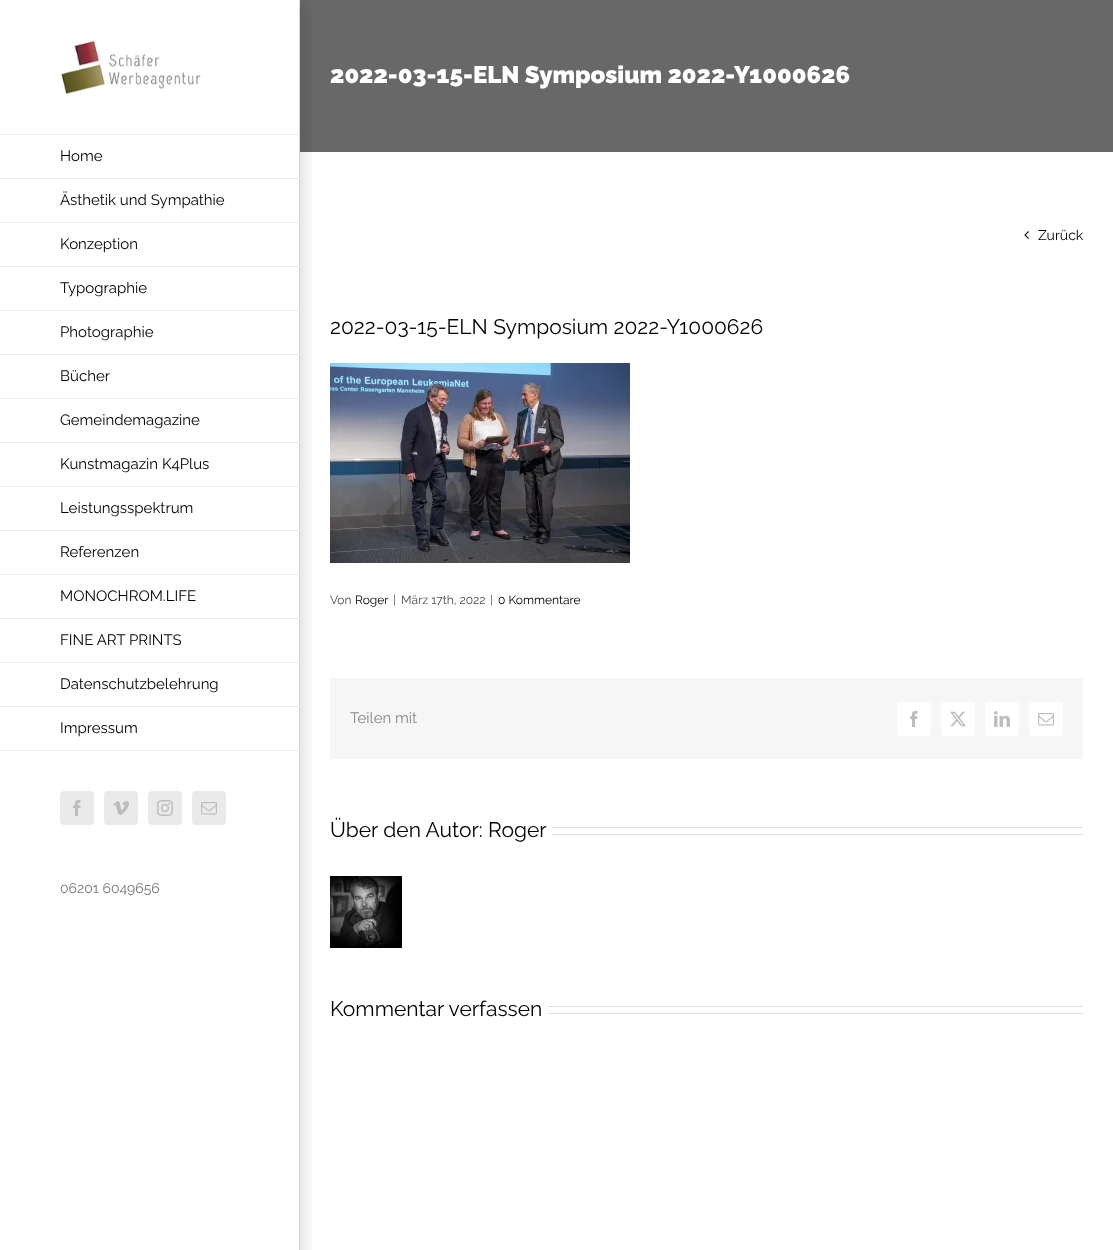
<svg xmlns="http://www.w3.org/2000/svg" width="1113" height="1250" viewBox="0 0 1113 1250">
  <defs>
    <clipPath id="clip1"><rect x="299" y="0" width="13" height="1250"/></clipPath>
  </defs>
  <rect width="100%" height="100%" fill="rgb(255,255,255)"/>
  <rect x="300" y="0" width="813" height="152" fill="rgb(104,104,104)"/>
  <text x="330" y="83" font-family="Raleway" font-size="24" font-weight="900" fill="rgb(255,255,255)">2022-03-15-ELN Symposium 2022-Y1000626</text>
  <image x="61" y="40" width="140" height="54" href="pic1.png"/>
  <rect x="299" y="0" width="1" height="1250" fill="rgb(234,234,234)"/>
  <g clip-path="url(#clip1)">
    <rect x="289" y="5" width="15" height="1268" fill="rgba(0,0,0,0.14)" filter="blur(7.5px)"/>
  </g>
  <rect x="0" y="134" width="300" height="1" fill="rgb(234,234,234)"/>
  <rect x="0" y="178" width="300" height="1" fill="rgb(234,234,234)"/>
  <text x="60" y="161" font-family="Raleway" font-size="15" fill="rgb(0,0,0)">Home</text>
  <rect x="0" y="222" width="300" height="1" fill="rgb(234,234,234)"/>
  <text x="60" y="205" font-family="Raleway" font-size="15" fill="rgb(0,0,0)">Ästhetik und Sympathie</text>
  <rect x="0" y="266" width="300" height="1" fill="rgb(234,234,234)"/>
  <text x="60" y="249" font-family="Raleway" font-size="15" fill="rgb(0,0,0)">Konzeption</text>
  <rect x="0" y="310" width="300" height="1" fill="rgb(234,234,234)"/>
  <text x="60" y="293" font-family="Raleway" font-size="15" fill="rgb(0,0,0)">Typographie</text>
  <rect x="0" y="354" width="300" height="1" fill="rgb(234,234,234)"/>
  <text x="60" y="337" font-family="Raleway" font-size="15" fill="rgb(0,0,0)">Photographie</text>
  <rect x="0" y="398" width="300" height="1" fill="rgb(234,234,234)"/>
  <text x="60" y="381" font-family="Raleway" font-size="15" fill="rgb(0,0,0)">Bücher</text>
  <rect x="0" y="442" width="300" height="1" fill="rgb(234,234,234)"/>
  <text x="60" y="425" font-family="Raleway" font-size="15" fill="rgb(0,0,0)">Gemeindemagazine</text>
  <rect x="0" y="486" width="300" height="1" fill="rgb(234,234,234)"/>
  <text x="60" y="469" font-family="Raleway" font-size="15" fill="rgb(0,0,0)">Kunstmagazin K4Plus</text>
  <rect x="0" y="530" width="300" height="1" fill="rgb(234,234,234)"/>
  <text x="60" y="513" font-family="Raleway" font-size="15" fill="rgb(0,0,0)">Leistungsspektrum</text>
  <rect x="0" y="574" width="300" height="1" fill="rgb(234,234,234)"/>
  <text x="60" y="557" font-family="Raleway" font-size="15" fill="rgb(0,0,0)">Referenzen</text>
  <rect x="0" y="618" width="300" height="1" fill="rgb(234,234,234)"/>
  <text x="60" y="601" font-family="Raleway" font-size="15" fill="rgb(0,0,0)">MONOCHROM.LIFE</text>
  <rect x="0" y="662" width="300" height="1" fill="rgb(234,234,234)"/>
  <text x="60" y="645" font-family="Raleway" font-size="15" fill="rgb(0,0,0)">FINE ART PRINTS</text>
  <rect x="0" y="706" width="300" height="1" fill="rgb(234,234,234)"/>
  <text x="60" y="689" font-family="Raleway" font-size="15" fill="rgb(0,0,0)">Datenschutzbelehrung</text>
  <rect x="0" y="750" width="300" height="1" fill="rgb(234,234,234)"/>
  <text x="60" y="733" font-family="Raleway" font-size="15" fill="rgb(0,0,0)">Impressum</text>
  <rect x="60.5" y="791.5" width="33" height="33" rx="3.5" fill="rgb(234,234,234)" stroke="rgb(234,234,234)"/>
  <image x="73" y="800" width="8" height="16" href="pic2.png"/>
  <rect x="104.5" y="791.5" width="33" height="33" rx="3.5" fill="rgb(234,234,234)" stroke="rgb(234,234,234)"/>
  <image x="113" y="801" width="16" height="14" href="pic3.png"/>
  <rect x="148.5" y="791.5" width="33" height="33" rx="3.5" fill="rgb(234,234,234)" stroke="rgb(234,234,234)"/>
  <image x="157" y="800" width="16" height="16" href="pic4.png"/>
  <rect x="192.5" y="791.5" width="33" height="33" rx="3.5" fill="rgb(234,234,234)" stroke="rgb(234,234,234)"/>
  <image x="201" y="802" width="16" height="13" href="pic5.png"/>
  <text x="60" y="893" font-family="Raleway" font-size="14" fill="rgb(116,116,116)">06201 6049656</text>
  <image x="1024" y="231" width="5" height="8" href="pic6.png"/>
  <text x="1038" y="240" font-family="Raleway" font-size="14" fill="rgb(0,0,0)">Zurück</text>
  <text x="330" y="334" font-family="Raleway" font-size="21" fill="rgb(0,0,0)">2022-03-15-ELN Symposium 2022-Y1000626</text>
  <image x="330" y="363" width="300" height="200" href="pic7.png"/>
  <text x="330" y="604" font-family="Raleway" font-size="12" fill="rgb(76,76,76)">Von</text>
  <text x="355" y="604" font-family="Raleway" font-size="12" fill="rgb(0,0,0)">Roger</text>
  <g font-family="Raleway" font-size="12" fill="rgb(76,76,76)">
    <text x="393" y="604">|</text>
    <text x="401" y="604">März 17th, 2022</text>
    <text x="490" y="604">|</text>
  </g>
  <text x="498" y="604" font-family="Raleway" font-size="12" fill="rgb(0,0,0)">0 Kommentare</text>
  <rect x="330" y="678" width="753" height="81" fill="rgb(246,246,246)"/>
  <text x="350" y="723" font-family="Raleway" font-size="15" fill="rgb(135,135,135)">Teilen mit</text>
  <rect x="897" y="702" width="34" height="34" rx="4" fill="rgb(255,255,255)"/>
  <image x="910" y="711" width="8" height="16" href="pic8.png"/>
  <rect x="941" y="702" width="34" height="34" rx="4" fill="rgb(255,255,255)"/>
  <image x="950" y="711" width="16" height="16" href="pic9.png"/>
  <rect x="985" y="702" width="34" height="34" rx="4" fill="rgb(255,255,255)"/>
  <image x="994" y="711" width="16" height="16" href="pic10.png"/>
  <rect x="1029" y="702" width="34" height="34" rx="4" fill="rgb(255,255,255)"/>
  <image x="1038" y="713" width="16" height="13" href="pic11.png"/>
  <text x="330" y="837" font-family="Raleway" font-size="21" fill="rgb(0,0,0)">Über den Autor: Roger</text>
  <rect x="552" y="827" width="531" height="1" fill="rgb(224,222,222)"/>
  <rect x="552" y="834" width="531" height="1" fill="rgb(224,222,222)"/>
  <image x="330" y="876" width="72" height="72" href="pic12.png"/>
  <text x="330" y="1016" font-family="Raleway" font-size="21" fill="rgb(0,0,0)">Kommentar verfassen</text>
  <rect x="548" y="1006" width="535" height="1" fill="rgb(224,222,222)"/>
  <rect x="548" y="1013" width="535" height="1" fill="rgb(224,222,222)"/>
</svg>
